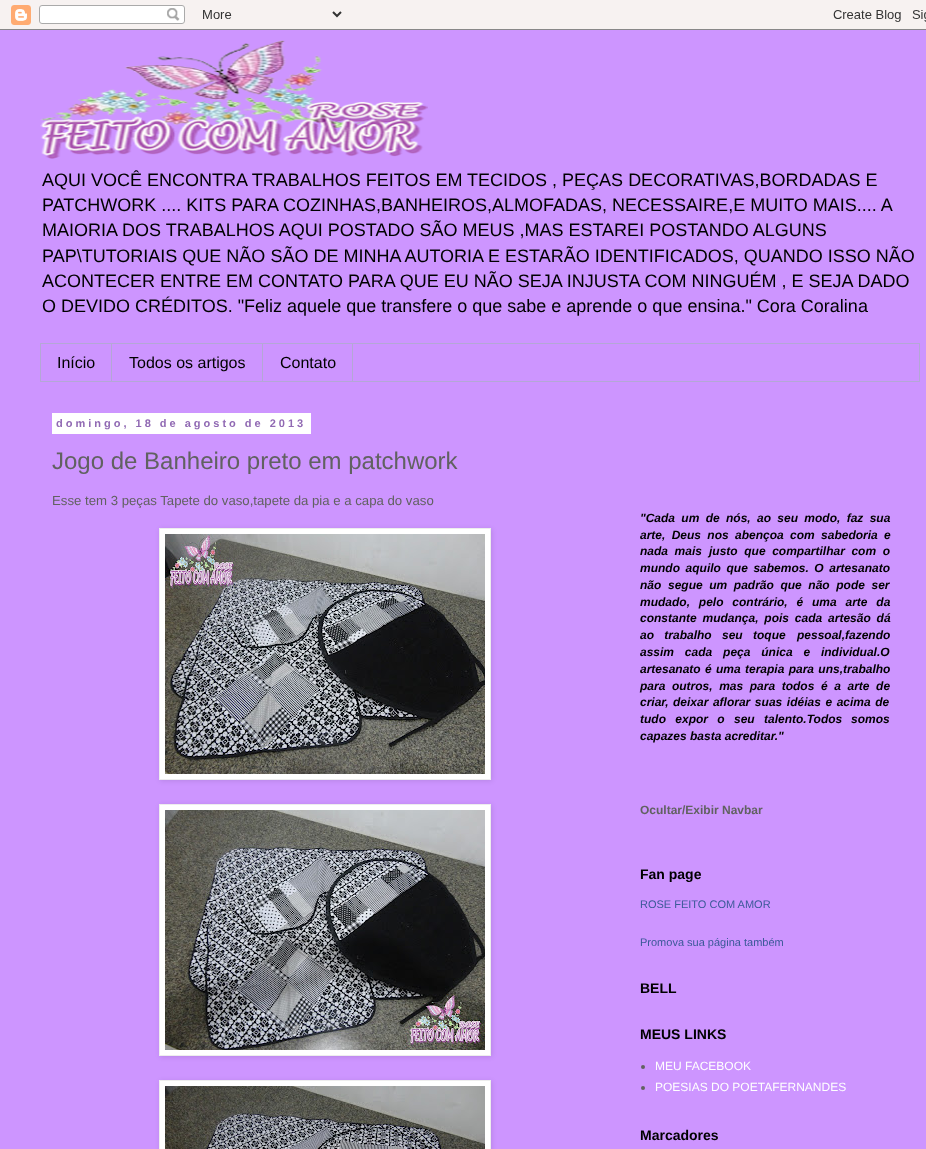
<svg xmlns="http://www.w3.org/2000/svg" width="926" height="1149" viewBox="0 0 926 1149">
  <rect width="100%" height="100%" fill="rgb(242,234,232)"/>
  <image x="0" y="0" width="926" height="30" href="pic1.png"/>
  <rect x="0" y="30" width="926" height="1119" fill="rgb(205,149,255)"/>
  <image x="40" y="40" width="388" height="119" href="pic2.png"/>
  <g font-family="Liberation Sans" font-size="18" fill="rgb(0,0,0)">
    <text>
      <tspan x="42" y="186">AQUI VOCÊ ENCONTRA TRABALHOS FEITOS EM TECIDOS , PEÇAS DECORATIVAS,BORDADAS E</tspan>
      <tspan x="42" y="211">PATCHWORK .... KITS PARA COZINHAS,BANHEIROS,ALMOFADAS, NECESSAIRE,E MUITO MAIS.... A</tspan>
      <tspan x="42" y="236">MAIORIA DOS TRABALHOS AQUI POSTADO SÃO MEUS ,MAS ESTAREI POSTANDO ALGUNS</tspan>
      <tspan x="42" y="262">PAP\TUTORIAIS QUE NÃO SÃO DE MINHA AUTORIA E ESTARÃO IDENTIFICADOS, QUANDO ISSO NÃO</tspan>
      <tspan x="42" y="287">ACONTECER ENTRE EM CONTATO PARA QUE EU NÃO SEJA INJUSTA COM NINGUÉM , E SEJA DADO</tspan>
      <tspan x="42" y="312">O DEVIDO CRÉDITOS. "Feliz aquele que transfere o que sabe e aprende o que ensina." Cora Coralina</tspan>
    </text>
  </g>
  <rect x="40.5" y="343.5" width="879" height="38" fill="none" stroke="rgb(180,167,214)"/>
  <rect x="111" y="344" width="1" height="37" fill="rgb(180,167,214)"/>
  <text x="57" y="368" font-family="Liberation Sans" font-size="16" fill="rgb(0,0,0)">Início</text>
  <rect x="262" y="344" width="1" height="37" fill="rgb(180,167,214)"/>
  <text x="129" y="368" font-family="Liberation Sans" font-size="16" fill="rgb(0,0,0)">Todos os artigos</text>
  <rect x="352" y="344" width="1" height="37" fill="rgb(180,167,214)"/>
  <text x="280" y="368" font-family="Liberation Sans" font-size="16" fill="rgb(0,0,0)">Contato</text>
  <rect x="52" y="413" width="259" height="21" fill="rgb(255,255,255)"/>
  <text x="56" y="427" font-family="Liberation Sans" font-size="11" font-weight="bold" letter-spacing="3" fill="rgb(144,105,179)">domingo, 18 de agosto de 2013</text>
  <text x="52" y="469" font-family="Liberation Sans" font-size="24" fill="rgb(97,97,97)">Jogo de Banheiro preto em patchwork</text>
  <text x="52" y="505" font-family="Liberation Sans" font-size="13.2" fill="rgb(97,97,97)">Esse tem 3 peças Tapete do vaso,tapete da pia e a capa do vaso</text>
  <rect x="160" y="529" width="332" height="252" fill="rgba(0,0,0,0.1)" filter="blur(2.5px)"/>
  <rect x="159.5" y="528.5" width="331" height="251" fill="rgb(255,255,255)" stroke="rgb(237,237,237)"/>
  <image x="165" y="534" width="320" height="240" href="pic3.png"/>
  <rect x="160" y="805" width="332" height="252" fill="rgba(0,0,0,0.1)" filter="blur(2.5px)"/>
  <rect x="159.5" y="804.5" width="331" height="251" fill="rgb(255,255,255)" stroke="rgb(237,237,237)"/>
  <image x="165" y="810" width="320" height="240" href="pic4.png"/>
  <rect x="160" y="1081" width="332" height="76" fill="rgba(0,0,0,0.1)" filter="blur(2.5px)"/>
  <rect x="159.5" y="1080.5" width="331" height="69" fill="rgb(255,255,255)" stroke="rgb(237,237,237)"/>
  <image x="165" y="1086" width="320" height="63" href="pic5.png"/>
  <g font-family="Liberation Sans" font-size="12" font-weight="bold" font-style="italic" fill="rgb(0,0,0)">
    <text x="640" y="522" word-spacing="3">"Cada um de nós,</text>
    <text x="757" y="522" word-spacing="3">ao seu modo, faz sua</text>
    <text>
      <tspan x="640" y="539" word-spacing="3">arte, Deus nos abençoa com sabedoria e</tspan>
      <tspan x="640" y="555" word-spacing="3.25">nada mais</tspan>
    </text>
    <text x="709" y="555" word-spacing="3.25">justo que compartilhar com o</text>
    <text>
      <tspan x="640" y="572" word-spacing="2.25">mundo aquilo que sabemos. O artesanato</tspan>
      <tspan x="640" y="589">não</tspan>
    </text>
    <text x="668" y="589" word-spacing="3.25">segue um padrão que não pode ser</text>
    <text>
      <tspan x="640" y="606" word-spacing="5.5">mudado, pelo contrário, é uma arte da</tspan>
      <tspan x="640" y="622" word-spacing="2.5">constante mudança, pois cada artesão dá</tspan>
      <tspan x="640" y="639" word-spacing="7">ao trabalho seu toque</tspan>
    </text>
    <text x="797" y="639">pessoal,fazendo</text>
    <text>
      <tspan x="640" y="656" word-spacing="7.5">assim cada peça única e individual.O</tspan>
      <tspan x="640" y="673" word-spacing="1">artesanato é uma</tspan>
    </text>
    <text x="745" y="673" word-spacing="1">terapia para uns,trabalho</text>
    <text>
      <tspan x="640" y="690" word-spacing="3.25">para outros, mas para todos é a arte de</tspan>
      <tspan x="640" y="706">criar,</tspan>
    </text>
    <text x="673" y="706" word-spacing="1.25">deixar aflorar suas idéias e acima de</text>
    <text x="640" y="723" word-spacing="6">tudo expor o seu talento.Todos</text>
    <text x="851" y="723">somos</text>
    <text x="640" y="740">capazes basta acreditar."</text>
  </g>
  <text x="640" y="814" font-family="Liberation Sans" font-size="12" font-weight="bold" fill="rgb(97,97,97)">Ocultar/Exibir Navbar</text>
  <text x="640" y="879" font-family="Liberation Sans" font-size="14" font-weight="bold" fill="rgb(0,0,0)">Fan page</text>
  <g font-family="Liberation Sans" font-size="11" fill="rgb(59,89,152)">
    <text x="640" y="908">ROSE FEITO COM AMOR</text>
    <text x="640" y="946">Promova sua página também</text>
  </g>
  <g font-family="Liberation Sans" font-size="14" font-weight="bold" fill="rgb(0,0,0)">
    <text x="640" y="993">BELL</text>
    <text x="640" y="1039">MEUS LINKS</text>
  </g>
  <circle cx="643" cy="1067" r="2" fill="rgb(97,97,97)"/>
  <text x="655" y="1070" font-family="Liberation Sans" font-size="12" fill="rgb(255,255,255)">MEU FACEBOOK</text>
  <circle cx="643" cy="1088" r="2" fill="rgb(97,97,97)"/>
  <text x="655" y="1091" font-family="Liberation Sans" font-size="12" fill="rgb(255,255,255)">POESIAS DO POETAFERNANDES</text>
  <text x="640" y="1140" font-family="Liberation Sans" font-size="14" font-weight="bold" fill="rgb(0,0,0)">Marcadores</text>
</svg>
